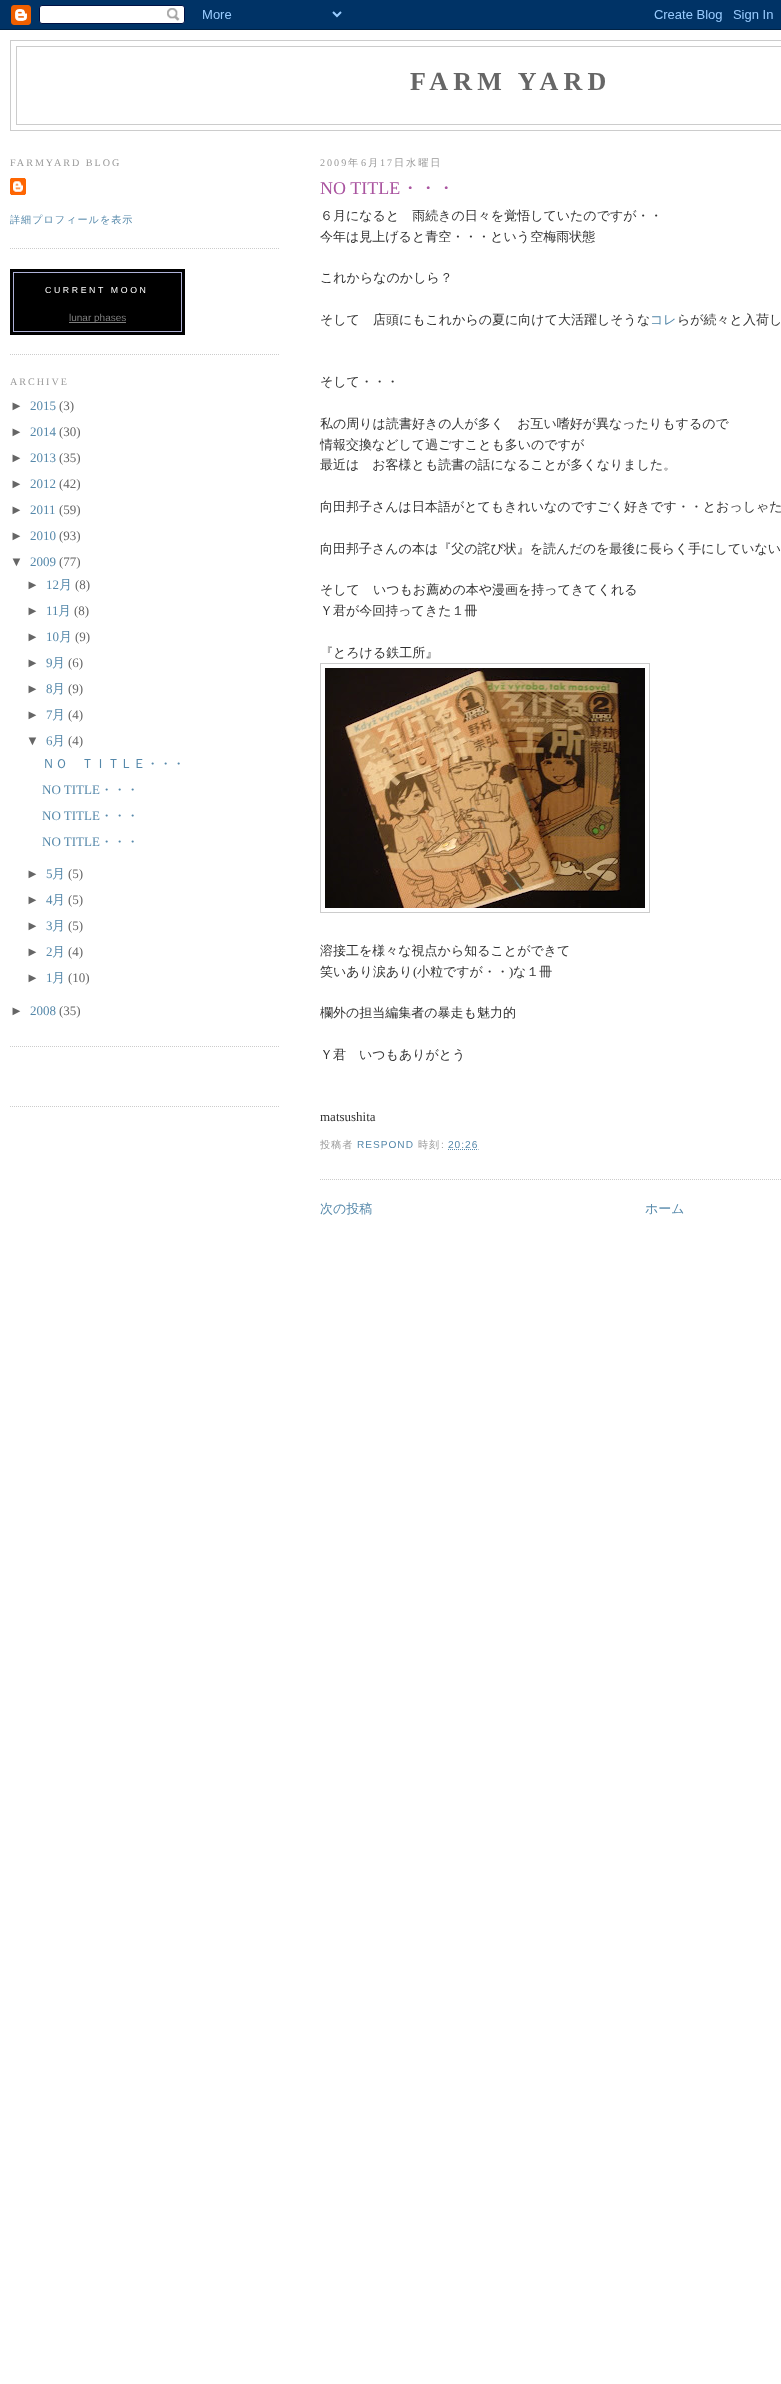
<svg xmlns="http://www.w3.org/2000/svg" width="781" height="2384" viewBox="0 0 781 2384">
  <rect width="100%" height="100%" fill="rgb(255,255,255)"/>
  <image x="0" y="0" width="781" height="30" href="pic1.png"/>
  <rect x="10.5" y="40.5" width="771" height="90" fill="none" stroke="rgb(204,204,204)"/>
  <rect x="16.5" y="46.5" width="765" height="78" fill="none" stroke="rgb(204,204,204)"/>
  <text x="410" y="90" font-family="Liberation Serif" font-size="26" font-weight="bold" letter-spacing="5.25" fill="rgb(102,102,102)">FARM YARD</text>
  <path d="M10 248.5H280" fill="none" stroke="rgb(204,204,204)" stroke-dasharray="1 1"/>
  <text x="10" y="166" font-family="Liberation Serif" font-size="10.1" letter-spacing="2" fill="rgb(153,153,153)">FARMYARD BLOG</text>
  <image x="10" y="178" width="16" height="17" href="pic2.png"/>
  <text x="10" y="223" font-family="WenQuanYi Zen Hei" font-size="10.1" font-weight="500" letter-spacing="1" fill="rgb(85,136,170)">詳細プロフィールを表示</text>
  <path d="M10 354.5H280" fill="none" stroke="rgb(204,204,204)" stroke-dasharray="1 1"/>
  <rect x="10" y="269" width="175" height="66" fill="rgb(0,0,0)"/>
  <rect x="13.5" y="272.5" width="168" height="59" fill="none" stroke="rgb(175,178,216)"/>
  <text x="45" y="293" font-family="Liberation Sans" font-size="8.75" letter-spacing="2.6" fill="rgb(255,255,255)">CURRENT MOON</text>
  <rect x="69" y="322" width="57" height="1" fill="rgb(127,127,127)"/>
  <text x="69" y="321" font-family="Liberation Sans" font-size="10" fill="rgb(127,127,127)">lunar phases</text>
  <path d="M10 1046.5H280" fill="none" stroke="rgb(204,204,204)" stroke-dasharray="1 1"/>
  <text x="10" y="385" font-family="Liberation Serif" font-size="10.1" letter-spacing="2" fill="rgb(153,153,153)">ARCHIVE</text>
  <text x="10" y="410" font-family="Liberation Sans" font-size="13" fill="rgb(102,102,102)">►</text>
  <text x="30" y="410" font-family="Liberation Serif" font-size="13" fill="rgb(85,136,170)">2015</text>
  <text x="59" y="410" font-family="Liberation Serif" font-size="13" fill="rgb(102,102,102)">(3)</text>
  <text x="10" y="436" font-family="Liberation Sans" font-size="13" fill="rgb(102,102,102)">►</text>
  <text x="30" y="436" font-family="Liberation Serif" font-size="13" fill="rgb(85,136,170)">2014</text>
  <text x="59" y="436" font-family="Liberation Serif" font-size="13" fill="rgb(102,102,102)">(30)</text>
  <text x="10" y="462" font-family="Liberation Sans" font-size="13" fill="rgb(102,102,102)">►</text>
  <text x="30" y="462" font-family="Liberation Serif" font-size="13" fill="rgb(85,136,170)">2013</text>
  <text x="59" y="462" font-family="Liberation Serif" font-size="13" fill="rgb(102,102,102)">(35)</text>
  <text x="10" y="488" font-family="Liberation Sans" font-size="13" fill="rgb(102,102,102)">►</text>
  <text x="30" y="488" font-family="Liberation Serif" font-size="13" fill="rgb(85,136,170)">2012</text>
  <text x="59" y="488" font-family="Liberation Serif" font-size="13" fill="rgb(102,102,102)">(42)</text>
  <text x="10" y="514" font-family="Liberation Sans" font-size="13" fill="rgb(102,102,102)">►</text>
  <text x="30" y="514" font-family="Liberation Serif" font-size="13" fill="rgb(85,136,170)">2011</text>
  <text x="59" y="514" font-family="Liberation Serif" font-size="13" fill="rgb(102,102,102)">(59)</text>
  <text x="10" y="540" font-family="Liberation Sans" font-size="13" fill="rgb(102,102,102)">►</text>
  <text x="30" y="540" font-family="Liberation Serif" font-size="13" fill="rgb(85,136,170)">2010</text>
  <text x="59" y="540" font-family="Liberation Serif" font-size="13" fill="rgb(102,102,102)">(93)</text>
  <text x="10" y="566" font-family="Liberation Sans" font-size="13" fill="rgb(102,102,102)">▼</text>
  <text x="30" y="566" font-family="Liberation Serif" font-size="13" fill="rgb(85,136,170)">2009</text>
  <text x="59" y="566" font-family="Liberation Serif" font-size="13" fill="rgb(102,102,102)">(77)</text>
  <text x="26" y="589" font-family="Liberation Sans" font-size="13" fill="rgb(102,102,102)">►</text>
  <text x="46" y="589" font-family="Liberation Serif" font-size="13" fill="rgb(85,136,170)">12</text>
  <text x="59" y="589" font-family="WenQuanYi Zen Hei" font-size="13" font-weight="500" fill="rgb(85,136,170)">月</text>
  <text x="75" y="589" font-family="Liberation Serif" font-size="13" fill="rgb(102,102,102)">(8)</text>
  <text x="26" y="615" font-family="Liberation Sans" font-size="13" fill="rgb(102,102,102)">►</text>
  <text x="46" y="615" font-family="Liberation Serif" font-size="13" fill="rgb(85,136,170)">11</text>
  <text x="58" y="615" font-family="WenQuanYi Zen Hei" font-size="13" font-weight="500" fill="rgb(85,136,170)">月</text>
  <text x="74" y="615" font-family="Liberation Serif" font-size="13" fill="rgb(102,102,102)">(8)</text>
  <text x="26" y="641" font-family="Liberation Sans" font-size="13" fill="rgb(102,102,102)">►</text>
  <text x="46" y="641" font-family="Liberation Serif" font-size="13" fill="rgb(85,136,170)">10</text>
  <text x="59" y="641" font-family="WenQuanYi Zen Hei" font-size="13" font-weight="500" fill="rgb(85,136,170)">月</text>
  <text x="75" y="641" font-family="Liberation Serif" font-size="13" fill="rgb(102,102,102)">(9)</text>
  <text x="26" y="667" font-family="Liberation Sans" font-size="13" fill="rgb(102,102,102)">►</text>
  <text x="46" y="667" font-family="Liberation Serif" font-size="13" fill="rgb(85,136,170)">9</text>
  <text x="52" y="667" font-family="WenQuanYi Zen Hei" font-size="13" font-weight="500" fill="rgb(85,136,170)">月</text>
  <text x="68" y="667" font-family="Liberation Serif" font-size="13" fill="rgb(102,102,102)">(6)</text>
  <text x="26" y="693" font-family="Liberation Sans" font-size="13" fill="rgb(102,102,102)">►</text>
  <text x="46" y="693" font-family="Liberation Serif" font-size="13" fill="rgb(85,136,170)">8</text>
  <text x="52" y="693" font-family="WenQuanYi Zen Hei" font-size="13" font-weight="500" fill="rgb(85,136,170)">月</text>
  <text x="68" y="693" font-family="Liberation Serif" font-size="13" fill="rgb(102,102,102)">(9)</text>
  <text x="26" y="719" font-family="Liberation Sans" font-size="13" fill="rgb(102,102,102)">►</text>
  <text x="46" y="719" font-family="Liberation Serif" font-size="13" fill="rgb(85,136,170)">7</text>
  <text x="52" y="719" font-family="WenQuanYi Zen Hei" font-size="13" font-weight="500" fill="rgb(85,136,170)">月</text>
  <text x="68" y="719" font-family="Liberation Serif" font-size="13" fill="rgb(102,102,102)">(4)</text>
  <text x="26" y="745" font-family="Liberation Sans" font-size="13" fill="rgb(102,102,102)">▼</text>
  <text x="46" y="745" font-family="Liberation Serif" font-size="13" fill="rgb(85,136,170)">6</text>
  <text x="52" y="745" font-family="WenQuanYi Zen Hei" font-size="13" font-weight="500" fill="rgb(85,136,170)">月</text>
  <text x="68" y="745" font-family="Liberation Serif" font-size="13" fill="rgb(102,102,102)">(4)</text>
  <text x="42" y="768" font-family="WenQuanYi Zen Hei" font-size="13" font-weight="500" fill="rgb(85,136,170)">ＮＯ　ＴＩＴＬＥ・・・</text>
  <text x="42" y="794" font-family="Liberation Serif" font-size="13" fill="rgb(85,136,170)">NO TITLE</text>
  <text x="100" y="794" font-family="WenQuanYi Zen Hei" font-size="13" font-weight="500" fill="rgb(85,136,170)">・・・</text>
  <text x="42" y="820" font-family="Liberation Serif" font-size="13" fill="rgb(85,136,170)">NO TITLE</text>
  <text x="100" y="820" font-family="WenQuanYi Zen Hei" font-size="13" font-weight="500" fill="rgb(85,136,170)">・・・</text>
  <text x="42" y="846" font-family="Liberation Serif" font-size="13" fill="rgb(85,136,170)">NO TITLE</text>
  <text x="100" y="846" font-family="WenQuanYi Zen Hei" font-size="13" font-weight="500" fill="rgb(85,136,170)">・・・</text>
  <text x="26" y="878" font-family="Liberation Sans" font-size="13" fill="rgb(102,102,102)">►</text>
  <text x="46" y="878" font-family="Liberation Serif" font-size="13" fill="rgb(85,136,170)">5</text>
  <text x="52" y="878" font-family="WenQuanYi Zen Hei" font-size="13" font-weight="500" fill="rgb(85,136,170)">月</text>
  <text x="68" y="878" font-family="Liberation Serif" font-size="13" fill="rgb(102,102,102)">(5)</text>
  <text x="26" y="904" font-family="Liberation Sans" font-size="13" fill="rgb(102,102,102)">►</text>
  <text x="46" y="904" font-family="Liberation Serif" font-size="13" fill="rgb(85,136,170)">4</text>
  <text x="52" y="904" font-family="WenQuanYi Zen Hei" font-size="13" font-weight="500" fill="rgb(85,136,170)">月</text>
  <text x="68" y="904" font-family="Liberation Serif" font-size="13" fill="rgb(102,102,102)">(5)</text>
  <text x="26" y="930" font-family="Liberation Sans" font-size="13" fill="rgb(102,102,102)">►</text>
  <text x="46" y="930" font-family="Liberation Serif" font-size="13" fill="rgb(85,136,170)">3</text>
  <text x="52" y="930" font-family="WenQuanYi Zen Hei" font-size="13" font-weight="500" fill="rgb(85,136,170)">月</text>
  <text x="68" y="930" font-family="Liberation Serif" font-size="13" fill="rgb(102,102,102)">(5)</text>
  <text x="26" y="956" font-family="Liberation Sans" font-size="13" fill="rgb(102,102,102)">►</text>
  <text x="46" y="956" font-family="Liberation Serif" font-size="13" fill="rgb(85,136,170)">2</text>
  <text x="52" y="956" font-family="WenQuanYi Zen Hei" font-size="13" font-weight="500" fill="rgb(85,136,170)">月</text>
  <text x="68" y="956" font-family="Liberation Serif" font-size="13" fill="rgb(102,102,102)">(4)</text>
  <text x="26" y="982" font-family="Liberation Sans" font-size="13" fill="rgb(102,102,102)">►</text>
  <text x="46" y="982" font-family="Liberation Serif" font-size="13" fill="rgb(85,136,170)">1</text>
  <text x="52" y="982" font-family="WenQuanYi Zen Hei" font-size="13" font-weight="500" fill="rgb(85,136,170)">月</text>
  <text x="68" y="982" font-family="Liberation Serif" font-size="13" fill="rgb(102,102,102)">(10)</text>
  <text x="10" y="1015" font-family="Liberation Sans" font-size="13" fill="rgb(102,102,102)">►</text>
  <text x="30" y="1015" font-family="Liberation Serif" font-size="13" fill="rgb(85,136,170)">2008</text>
  <text x="59" y="1015" font-family="Liberation Serif" font-size="13" fill="rgb(102,102,102)">(35)</text>
  <path d="M10 1106.5H280" fill="none" stroke="rgb(204,204,204)" stroke-dasharray="1 1"/>
  <text x="320" y="166" font-family="Liberation Serif" font-size="10.1" letter-spacing="2" fill="rgb(153,153,153)">2009</text>
  <text x="348" y="166" font-family="WenQuanYi Zen Hei" font-size="10.1" font-weight="500" letter-spacing="2" fill="rgb(153,153,153)">年</text>
  <text x="361" y="166" font-family="Liberation Serif" font-size="10.1" letter-spacing="2" fill="rgb(153,153,153)">6</text>
  <text x="368" y="166" font-family="WenQuanYi Zen Hei" font-size="10.1" font-weight="500" letter-spacing="2" fill="rgb(153,153,153)">月</text>
  <text x="380" y="166" font-family="Liberation Serif" font-size="10.1" letter-spacing="2" fill="rgb(153,153,153)">17</text>
  <text x="394" y="166" font-family="WenQuanYi Zen Hei" font-size="10.1" font-weight="500" letter-spacing="2" fill="rgb(153,153,153)">日水曜日</text>
  <path d="M320 1179.5H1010" fill="none" stroke="rgb(204,204,204)" stroke-dasharray="1 1"/>
  <text x="320" y="194" font-family="Liberation Serif" font-size="18" fill="rgb(170,85,160)">NO TITLE</text>
  <text x="401" y="194" font-family="WenQuanYi Zen Hei" font-size="18" font-weight="500" fill="rgb(170,85,160)">・・・</text>
  <g font-family="WenQuanYi Zen Hei" font-size="13" font-weight="500" fill="rgb(51,51,51)">
    <text>
      <tspan x="320" y="220">６月になると　雨続きの日々を覚悟していたのですが・・</tspan>
      <tspan x="320" y="241">今年は見上げると青空・・・という空梅雨状態</tspan>
    </text>
    <text x="320" y="282">これからなのかしら？</text>
    <text x="320" y="324">そして　店頭にもこれからの夏に向けて大活躍しそうな</text>
  </g>
  <text x="650" y="324" font-family="WenQuanYi Zen Hei" font-size="13" font-weight="500" fill="rgb(85,136,170)">コレ</text>
  <g font-family="WenQuanYi Zen Hei" font-size="13" font-weight="500" fill="rgb(51,51,51)">
    <text x="677" y="324">らが続々と入荷し</text>
    <text x="320" y="386">そして・・・</text>
    <text>
      <tspan x="320" y="428">私の周りは読書好きの人が多く　お互い嗜好が異なったりもするので</tspan>
      <tspan x="320" y="449">情報交換などして過ごすことも多いのですが</tspan>
      <tspan x="320" y="469">最近は　お客様とも読書の話になることが多くなりました。</tspan>
    </text>
    <text x="320" y="511">向田邦子さんは日本語がとてもきれいなのですごく好きです・・とおっしゃた</text>
    <text x="320" y="553">向田邦子さんの本は『父の詫び状』を読んだのを最後に長らく手にしていない</text>
    <text>
      <tspan x="320" y="594">そして　いつもお薦めの本や漫画を持ってきてくれる</tspan>
      <tspan x="320" y="615">Ｙ君が今回持ってきた１冊</tspan>
    </text>
    <text x="320" y="657">『とろける鉄工所』</text>
  </g>
  <rect x="320.5" y="663.5" width="329" height="249" fill="none" stroke="rgb(204,204,204)"/>
  <image x="325" y="668" width="320" height="240" href="pic3.png"/>
  <g font-family="WenQuanYi Zen Hei" font-size="13" font-weight="500" fill="rgb(51,51,51)">
    <text>
      <tspan x="320" y="955">溶接工を様々な視点から知ることができて</tspan>
      <tspan x="320" y="976">笑いあり涙あり</tspan>
    </text>
  </g>
  <text x="413" y="976" font-family="Liberation Serif" font-size="13" fill="rgb(51,51,51)">(</text>
  <text x="417" y="976" font-family="WenQuanYi Zen Hei" font-size="13" font-weight="500" fill="rgb(51,51,51)">小粒ですが・・</text>
  <text x="509" y="976" font-family="Liberation Serif" font-size="13" fill="rgb(51,51,51)">)</text>
  <g font-family="WenQuanYi Zen Hei" font-size="13" font-weight="500" fill="rgb(51,51,51)">
    <text x="513" y="976">な１冊</text>
    <text x="320" y="1017">欄外の担当編集者の暴走も魅力的</text>
    <text x="320" y="1059">Ｙ君　いつもありがとう</text>
  </g>
  <text x="320" y="1121" font-family="Liberation Serif" font-size="13" fill="rgb(51,51,51)">matsushita</text>
  <text x="320" y="1148" font-family="WenQuanYi Zen Hei" font-size="10.1" font-weight="500" letter-spacing="1" fill="rgb(153,153,153)">投稿者</text>
  <text x="357" y="1148" font-family="Liberation Sans" font-size="10.1" letter-spacing="1" fill="rgb(85,136,170)">RESPOND</text>
  <text x="418" y="1148" font-family="WenQuanYi Zen Hei" font-size="10.1" font-weight="500" letter-spacing="1" fill="rgb(153,153,153)">時刻</text>
  <text x="441" y="1148" font-family="Liberation Sans" font-size="10.1" letter-spacing="1" fill="rgb(153,153,153)">:</text>
  <text x="448" y="1148" font-family="Liberation Sans" font-size="10.1" letter-spacing="1" fill="rgb(85,136,170)">20:26</text>
  <path d="M448 1149.5H478.5" fill="none" stroke="rgb(85,136,170)" stroke-dasharray="1 1"/>
  <g font-family="WenQuanYi Zen Hei" font-size="13" font-weight="500" fill="rgb(85,136,170)">
    <text x="320" y="1213">次の投稿</text>
    <text x="645" y="1213">ホーム</text>
  </g>
</svg>
